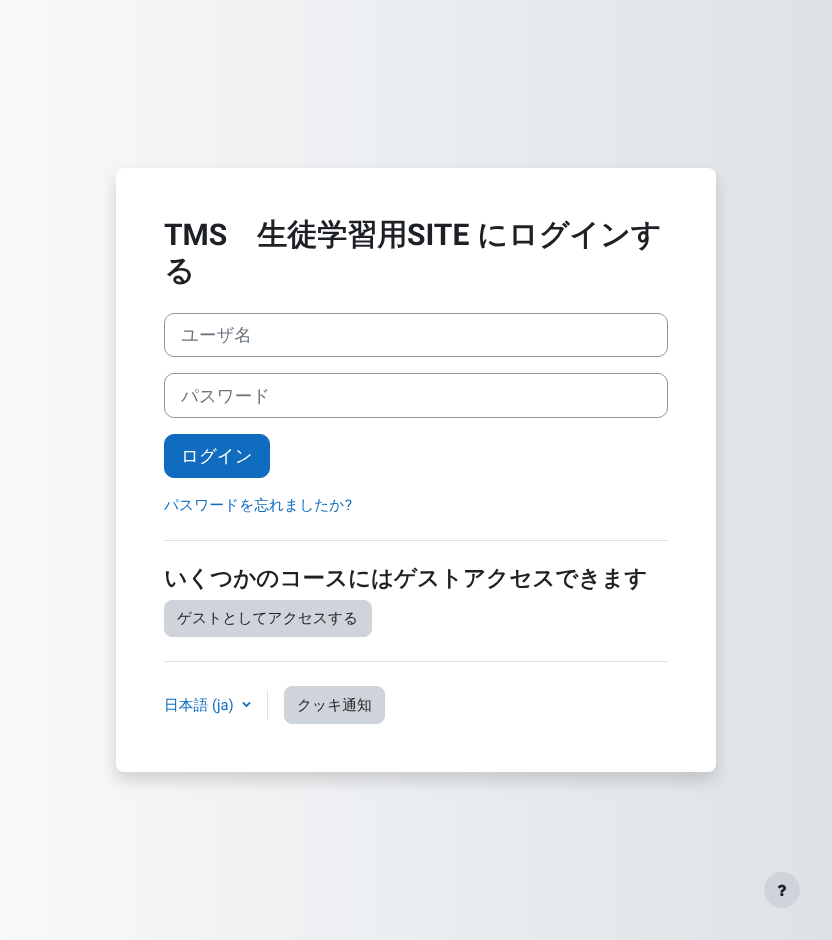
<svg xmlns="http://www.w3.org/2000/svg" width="832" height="940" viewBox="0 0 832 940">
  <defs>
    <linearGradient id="g1" gradientUnits="userSpaceOnUse" x1="0" y1="470" x2="832" y2="470"><stop offset="0" stop-color="rgb(248,249,250)"/><stop offset="1" stop-color="rgb(222,226,230)"/></linearGradient>
  </defs>
  <rect width="100%" height="100%" fill="rgb(255,255,255)"/>
  <rect x="0" y="0" width="832" height="940" fill="url(#g1)"/>
  <rect x="116" y="176" width="600" height="604" rx="8" fill="rgba(0,0,0,0.15)" filter="blur(8px)"/>
  <rect x="116" y="168" width="600" height="604" rx="8" fill="rgb(255,255,255)"/>
  <text x="164" y="245" font-family="Roboto" font-size="30" font-weight="bold" fill="rgb(29,33,37)">TMS</text>
  <text x="257" y="245" font-family="WenQuanYi Zen Hei" font-size="30" font-weight="bold" fill="rgb(29,33,37)">生徒学習用</text>
  <text x="407" y="245" font-family="Roboto" font-size="30" font-weight="bold" fill="rgb(29,33,37)">SITE</text>
  <g font-family="WenQuanYi Zen Hei" font-size="30" font-weight="bold" fill="rgb(29,33,37)">
    <text x="477" y="245">にログインす</text>
    <text x="164" y="281">る</text>
  </g>
  <rect x="164.5" y="313.5" width="503" height="43" rx="9.5" fill="none" stroke="rgb(143,149,158)"/>
  <text x="181" y="341" font-family="WenQuanYi Zen Hei" font-size="17.5" font-weight="500" fill="rgb(106,115,123)">ユーザ名</text>
  <rect x="164.5" y="373.5" width="503" height="44" rx="9.5" fill="none" stroke="rgb(143,149,158)"/>
  <text x="181" y="402" font-family="WenQuanYi Zen Hei" font-size="17.5" font-weight="500" fill="rgb(106,115,123)">パスワード</text>
  <rect x="164.5" y="434.5" width="105" height="43" rx="9.5" fill="rgb(15,108,191)" stroke="rgb(15,108,191)"/>
  <text x="181" y="462" font-family="WenQuanYi Zen Hei" font-size="17.5" font-weight="500" fill="rgb(255,255,255)">ログイン</text>
  <text x="164" y="510" font-family="WenQuanYi Zen Hei" font-size="14.75" font-weight="500" fill="rgb(15,108,191)">パスワードを忘れましたか</text>
  <text x="345" y="510" font-family="Roboto" font-size="14.75" fill="rgb(15,108,191)">?</text>
  <rect x="164" y="540" width="504" height="1" fill="rgb(222,226,230)"/>
  <text x="164" y="586" font-family="WenQuanYi Zen Hei" font-size="22.5" font-weight="bold" fill="rgb(29,33,37)">いくつかのコースにはゲストアクセスできます</text>
  <rect x="164.5" y="600.5" width="207" height="36" rx="7.5" fill="rgb(206,212,218)" stroke="rgb(206,212,218)"/>
  <text x="177" y="623" font-family="WenQuanYi Zen Hei" font-size="14.75" font-weight="500" fill="rgb(29,33,37)">ゲストとしてアクセスする</text>
  <rect x="164" y="661" width="504" height="1" fill="rgb(222,226,230)"/>
  <text x="164" y="710" font-family="WenQuanYi Zen Hei" font-size="14.75" font-weight="500" fill="rgb(15,108,191)">日本語</text>
  <text x="212" y="710" font-family="Roboto" font-size="14.75" fill="rgb(15,108,191)">(ja)</text>
  <image x="242" y="702" width="9" height="6" href="pic1.png"/>
  <rect x="267" y="690" width="1" height="30" fill="rgb(222,226,230)"/>
  <rect x="284.5" y="686.5" width="100" height="37" rx="7.5" fill="rgb(206,212,218)" stroke="rgb(206,212,218)"/>
  <text x="297" y="710" font-family="WenQuanYi Zen Hei" font-size="14.75" font-weight="500" fill="rgb(29,33,37)">クッキ通知</text>
  <circle cx="782" cy="890" r="18" fill="rgb(206,212,218)"/>
  <image x="777" y="884" width="10" height="12" href="pic2.png"/>
</svg>
